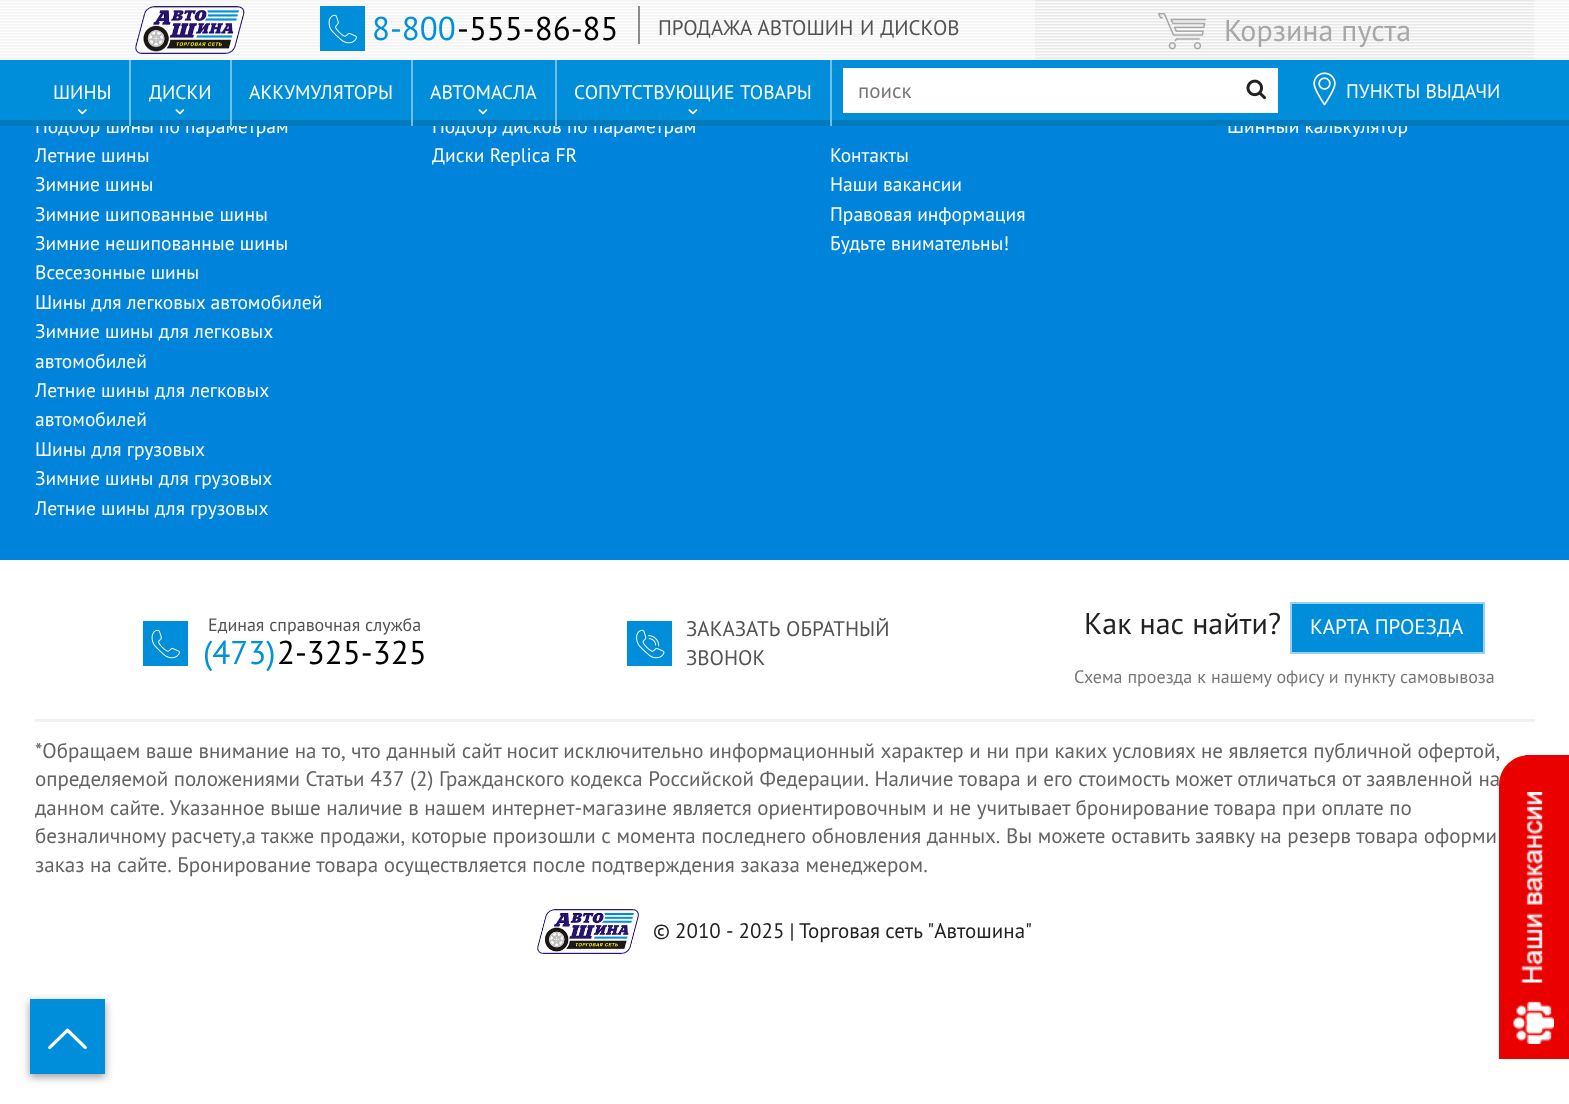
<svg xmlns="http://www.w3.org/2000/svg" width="1569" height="1104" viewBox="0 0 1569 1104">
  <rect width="100%" height="100%" fill="rgb(255,255,255)"/>
  <image x="0" y="0" width="1569" height="59" href="pic1.png"/>
  <image x="135" y="6" width="110" height="48" href="pic2.png"/>
  <rect x="320" y="6" width="45" height="45" fill="rgb(0,142,218)"/>
  <image x="328" y="14" width="29" height="30" href="pic3.png"/>
  <text x="372" y="40" font-family="PT Sans" font-size="33" fill="rgb(0,145,220)">8-800</text>
  <text x="457" y="40" font-family="PT Sans" font-size="33" fill="rgb(0,0,0)">-555-86-85</text>
  <rect x="638" y="6" width="2" height="38" fill="rgb(139,139,139)"/>
  <text x="658" y="35" word-spacing="1" font-family="PT Sans" font-size="21" fill="rgb(83,83,83)">ПРОДАЖА АВТОШИН И ДИСКОВ</text>
  <image x="1035" y="0" width="499" height="59" href="pic4.png"/>
  <image x="1158" y="13" width="48" height="37" href="pic5.png"/>
  <text x="1224" y="41" font-family="PT Sans" font-size="30" fill="rgb(167,167,167)">Корзина пуста</text>
  <rect x="0" y="126" width="1569" height="434" fill="rgb(0,131,218)"/>
  <g font-family="PT Sans" font-size="19.5" fill="rgb(255,255,255)">
    <text x="35" y="133">Подбор шины по параметрам</text>
    <text x="432" y="133">Подбор дисков по параметрам</text>
    <text x="1227" y="133">Шинный калькулятор</text>
  </g>
  <rect x="0" y="60" width="1569" height="60" fill="rgb(0,142,218)"/>
  <rect x="0" y="120" width="1569" height="6" fill="rgb(0,122,187)"/>
  <text x="53" y="99" font-family="PT Sans" font-size="19.5" fill="rgb(255,255,255)">ШИНЫ</text>
  <image x="78" y="109" width="9" height="6" href="pic6.png"/>
  <rect x="129" y="60" width="2" height="66" fill="rgb(112,192,235)"/>
  <text x="149" y="99" font-family="PT Sans" font-size="19.5" fill="rgb(255,255,255)">ДИСКИ</text>
  <image x="175" y="109" width="10" height="6" href="pic7.png"/>
  <rect x="230" y="60" width="2" height="66" fill="rgb(112,192,235)"/>
  <text x="249" y="99" font-family="PT Sans" font-size="19.5" fill="rgb(255,255,255)">АККУМУЛЯТОРЫ</text>
  <rect x="411" y="60" width="2" height="66" fill="rgb(112,192,235)"/>
  <text x="430" y="99" font-family="PT Sans" font-size="19.5" fill="rgb(255,255,255)">АВТОМАСЛА</text>
  <image x="478" y="109" width="10" height="6" href="pic7.png"/>
  <rect x="555" y="60" width="2" height="66" fill="rgb(112,192,235)"/>
  <text x="574" y="99" word-spacing="1" font-family="PT Sans" font-size="19.5" fill="rgb(255,255,255)">СОПУТСТВУЮЩИЕ ТОВАРЫ</text>
  <image x="688" y="109" width="10" height="6" href="pic7.png"/>
  <rect x="830" y="60" width="2" height="66" fill="rgb(112,192,235)"/>
  <rect x="843" y="68" width="435" height="45" fill="rgb(255,255,255)"/>
  <text x="858" y="98" font-family="PT Sans" font-size="21" fill="rgb(119,119,119)">поиск</text>
  <image x="1246" y="79" width="20" height="21" href="pic8.png"/>
  <image x="1313" y="72" width="23" height="34" href="pic9.png"/>
  <g font-family="PT Sans" font-size="19.5" fill="rgb(255,255,255)">
    <text x="1346" y="98">ПУНКТЫ ВЫДАЧИ</text>
    <text>
      <tspan x="35" y="162">Летние шины</tspan>
      <tspan x="35" y="191">Зимние шины</tspan>
      <tspan x="35" y="221">Зимние шипованные шины</tspan>
      <tspan x="35" y="250">Зимние нешипованные шины</tspan>
      <tspan x="35" y="279">Всесезонные шины</tspan>
      <tspan x="35" y="309">Шины для легковых автомобилей</tspan>
      <tspan x="35" y="338">Зимние шины для легковых</tspan>
      <tspan x="35" y="368">автомобилей</tspan>
      <tspan x="35" y="397">Летние шины для легковых</tspan>
      <tspan x="35" y="426">автомобилей</tspan>
      <tspan x="35" y="456">Шины для грузовых</tspan>
      <tspan x="35" y="485">Зимние шины для грузовых</tspan>
      <tspan x="35" y="515">Летние шины для грузовых</tspan>
    </text>
    <text x="432" y="162">Диски Replica FR</text>
    <text>
      <tspan x="830" y="162">Контакты</tspan>
      <tspan x="830" y="191">Наши вакансии</tspan>
      <tspan x="830" y="221">Правовая информация</tspan>
      <tspan x="830" y="250">Будьте внимательны!</tspan>
    </text>
  </g>
  <rect x="143" y="621" width="45" height="45" fill="rgb(0,142,218)"/>
  <image x="151" y="629" width="29" height="30" href="pic3.png"/>
  <text x="208" y="631" font-family="PT Sans" font-size="18" fill="rgb(83,83,83)">Единая справочная служба</text>
  <text x="203" y="664" font-family="PT Sans" font-size="33" fill="rgb(0,145,220)">(473)</text>
  <text x="277" y="664" font-family="PT Sans" font-size="33" fill="rgb(0,0,0)">2-325-325</text>
  <rect x="627" y="621" width="45" height="45" fill="rgb(0,142,218)"/>
  <image x="636" y="629" width="29" height="30" href="pic10.png"/>
  <g font-family="PT Sans" font-size="21" fill="rgb(83,83,83)">
    <text>
      <tspan x="686" y="636" word-spacing="1">ЗАКАЗАТЬ ОБРАТНЫЙ</tspan>
      <tspan x="686" y="665">ЗВОНОК</tspan>
    </text>
  </g>
  <text x="1084" y="634" font-family="PT Sans" font-size="30" fill="rgb(34,34,34)">Как нас найти?</text>
  <rect x="1291" y="603" width="193" height="50" fill="rgb(0,142,218)" stroke="rgb(153,210,240)" stroke-width="2"/>
  <text x="1310" y="634" word-spacing="1" font-family="PT Sans" font-size="21" fill="rgb(255,255,255)">КАРТА ПРОЕЗДА</text>
  <text x="1074" y="683" word-spacing="0.25" font-family="PT Sans" font-size="18" fill="rgb(119,119,119)">Схема проезда к нашему офису и пункту самовывоза</text>
  <rect x="35" y="719" width="1500" height="3" fill="rgb(241,241,241)"/>
  <g font-family="PT Sans" font-size="21" fill="rgb(99,99,99)">
    <text>
      <tspan x="35" y="758">*Обращаем ваше внимание на то, что данный сайт носит исключительно информационный характер и ни при каких условиях не является публичной офертой,</tspan>
      <tspan x="35" y="786">определяемой положениями Статьи 437 (2) Гражданского кодекса Российской Федерации. Наличие товара и его стоимость может отличаться от заявленной на</tspan>
      <tspan x="35" y="815">данном сайте. Указанное выше наличие в нашем интернет-магазине является ориентировочным и не учитывает бронирование товара при оплате по</tspan>
      <tspan x="35" y="843">безналичному расчету‚а также продажи, которые произошли с момента последнего обновления данных. Вы можете оставить заявку на резерв товара оформи</tspan>
      <tspan x="35" y="872" word-spacing="-0.1">заказ на сайте. Бронирование товара осуществляется после подтверждения заказа менеджером.</tspan>
    </text>
  </g>
  <image x="537" y="909" width="102" height="45" href="pic11.png"/>
  <text x="653" y="938" word-spacing="-0.5" font-family="PT Sans" font-size="21" fill="rgb(34,34,34)">© 2010 - 2025 | Торговая сеть "Автошина"</text>
  <path d="M1529 755H1569V1059H1499V785C1499 768.5 1512.5 755 1529 755Z" fill="rgb(235,0,0)"/>
  <image x="1513" y="792" width="41" height="252" href="pic12.png"/>
  <rect x="30" y="1002" width="75" height="75" fill="rgb(154,154,154)" filter="blur(4.5px)"/>
  <rect x="30" y="999" width="75" height="75" fill="rgb(0,142,218)"/>
  <path d="M84 1048.5L67.5 1032.5L53.5 1046C52.5 1047 49.5 1051 48 1048L48.5 1046.5L67 1028.5C68.5 1028 73.5 1034 74.5 1034.5L83.5 1043.5C83.5 1043.5 89.5 1048 85.5 1049Z" fill="rgb(255,255,255)"/>
</svg>
